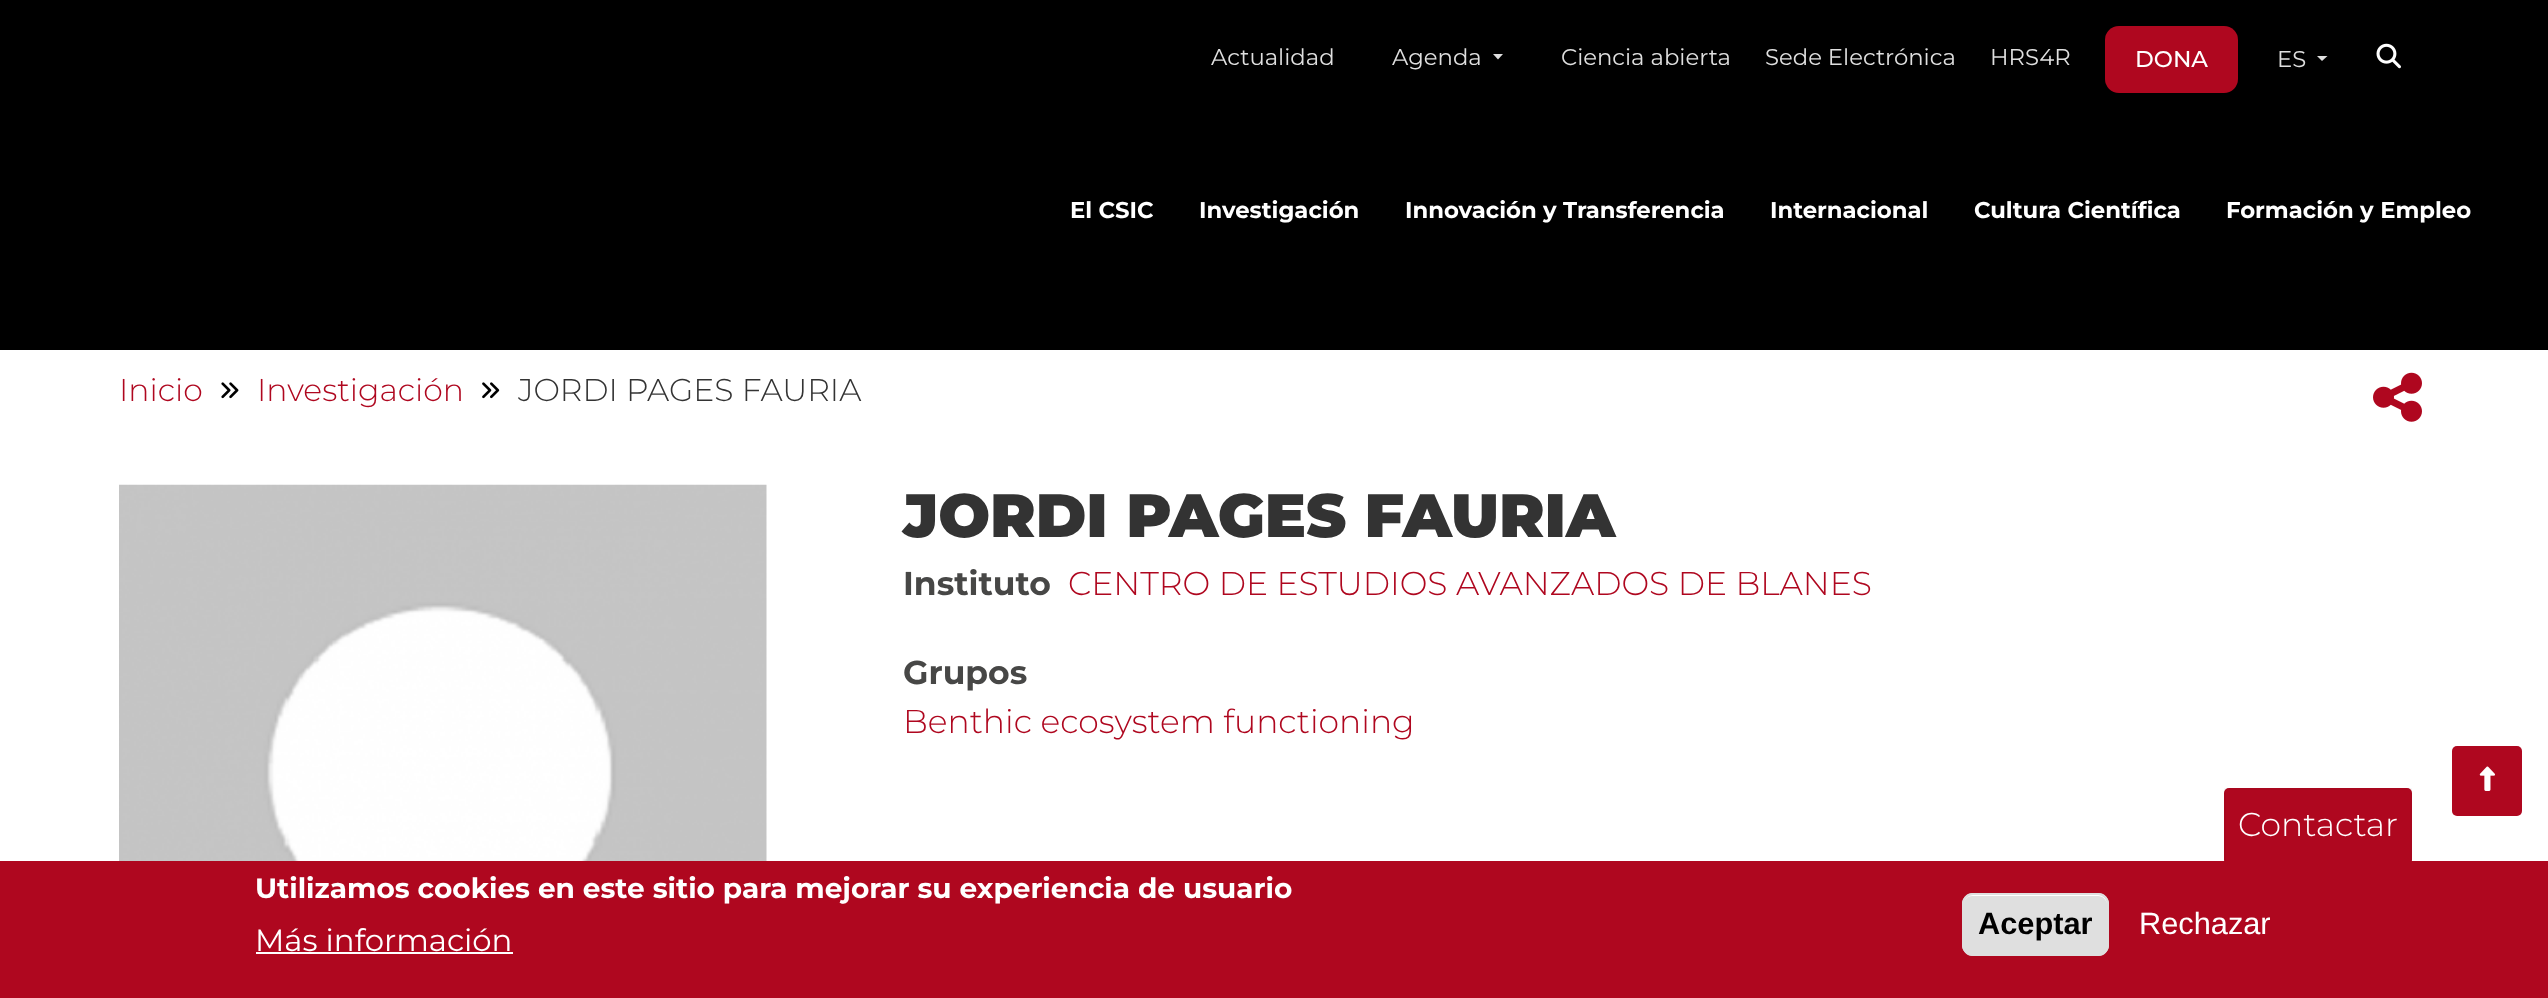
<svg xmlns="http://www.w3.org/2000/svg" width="2548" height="998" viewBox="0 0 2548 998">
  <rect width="100%" height="100%" fill="rgb(255,255,255)"/>
  <rect x="0" y="0" width="2548" height="350" fill="rgb(0,0,0)"/>
  <g font-family="Montserrat" font-size="22.75" fill="rgb(223,223,223)">
    <text x="1211" y="65">Actualidad</text>
    <text x="1392" y="65">Agenda</text>
  </g>
  <path d="M1493 54H1503L1498 59.5Z" fill="rgb(223,223,223)"/>
  <g font-family="Montserrat" font-size="22.75" fill="rgb(223,223,223)">
    <text x="1561" y="65">Ciencia abierta</text>
    <text x="1765" y="65">Sede Electrónica</text>
    <text x="1990" y="65">HRS4R</text>
  </g>
  <rect x="2105" y="26" width="133" height="67" rx="14" fill="rgb(175,7,31)"/>
  <text x="2135" y="67" font-family="Montserrat" font-size="22.75" font-weight="500" fill="rgb(255,255,255)">DONA</text>
  <text x="2277" y="67" font-family="Montserrat" font-size="22.75" fill="rgb(223,223,223)">ES</text>
  <path d="M2317 56H2327.5L2322 61Z" fill="rgb(223,223,223)"/>
  <image x="2376" y="43" width="25" height="26" href="pic1.png"/>
  <g font-family="Montserrat" font-size="22.75" font-weight="bold" fill="rgb(255,255,255)">
    <text x="1070" y="218">El CSIC</text>
    <text x="1199" y="218">Investigación</text>
    <text x="1405" y="218">Innovación y Transferencia</text>
    <text x="1770" y="218">Internacional</text>
    <text x="1974" y="218">Cultura Científica</text>
    <text x="2226" y="218">Formación y Empleo</text>
  </g>
  <text x="119" y="401" font-family="Montserrat" font-size="31.5" font-weight="300" fill="rgb(175,7,31)">Inicio</text>
  <image x="221" y="382" width="18" height="17" href="pic2.png"/>
  <text x="257" y="401" font-family="Montserrat" font-size="31.5" font-weight="300" fill="rgb(175,7,31)">Investigación</text>
  <image x="482" y="382" width="18" height="17" href="pic3.png"/>
  <text x="518" y="401" font-family="Montserrat" font-size="31.5" font-weight="300" fill="rgb(51,51,51)">JORDI PAGES FAURIA</text>
  <image x="2373" y="372" width="49" height="50" href="pic4.png"/>
  <image x="119" y="484" width="648" height="377" href="pic5.png"/>
  <text x="903" y="537" font-family="Montserrat" font-size="61.25" font-weight="900" fill="rgb(51,51,51)">JORDI PAGES FAURIA</text>
  <text x="903" y="595" font-family="Montserrat" font-size="33" font-weight="bold" fill="rgb(71,71,70)">Instituto</text>
  <text x="1068" y="595" font-family="Montserrat" font-size="33" font-weight="300" fill="rgb(175,7,31)">CENTRO DE ESTUDIOS AVANZADOS DE BLANES</text>
  <text x="903" y="684" font-family="Montserrat" font-size="33" font-weight="bold" fill="rgb(71,71,70)">Grupos</text>
  <text x="903" y="733" font-family="Montserrat" font-size="33" font-weight="300" fill="rgb(175,7,31)">Benthic ecosystem functioning</text>
  <rect x="2224" y="788" width="188" height="77" rx="5" fill="rgb(175,7,31)"/>
  <rect x="2225" y="789" width="186" height="75" fill="none" stroke="rgba(0,0,0,0.03)" stroke-width="2"/>
  <text x="2238" y="836" font-family="Montserrat" font-size="33" font-weight="300" fill="rgb(255,255,255)">Contactar</text>
  <rect x="2452" y="746" width="70" height="70" rx="5" fill="rgb(175,7,31)"/>
  <image x="2479" y="766" width="16" height="25" href="pic6.png"/>
  <rect x="0" y="861" width="2548" height="137" fill="rgb(175,7,31)"/>
  <text x="255" y="898" font-family="Montserrat" font-size="28" font-weight="bold" fill="rgb(255,255,255)">Utilizamos cookies en este sitio para mejorar su experiencia de usuario</text>
  <text x="255" y="951" font-family="Montserrat" font-size="30.75" fill="rgb(255,255,255)">Más información</text>
  <rect x="256" y="952" width="257" height="2" fill="rgb(255,255,255)"/>
  <rect x="1962" y="893" width="147" height="63" rx="11" fill="rgb(223,223,223)"/>
  <path d="M1972 896H2098C2103 896 2107 900 2107 905C2107 889 2088 894 2077 894H1994C1983 894 1964 889 1964 905C1964 900 1967 896 1972 896Z" fill="rgb(255,255,255)"/>
  <rect x="1963" y="894" width="145" height="61" rx="10" fill="none" stroke="rgb(223,223,223)" stroke-width="2"/>
  <text x="1978" y="934" font-family="Liberation Sans" font-size="30.75" font-weight="bold" fill="rgb(0,0,0)">Aceptar</text>
  <text x="2139" y="934" font-family="Liberation Sans" font-size="30.75" fill="rgb(255,255,255)">Rechazar</text>
</svg>
